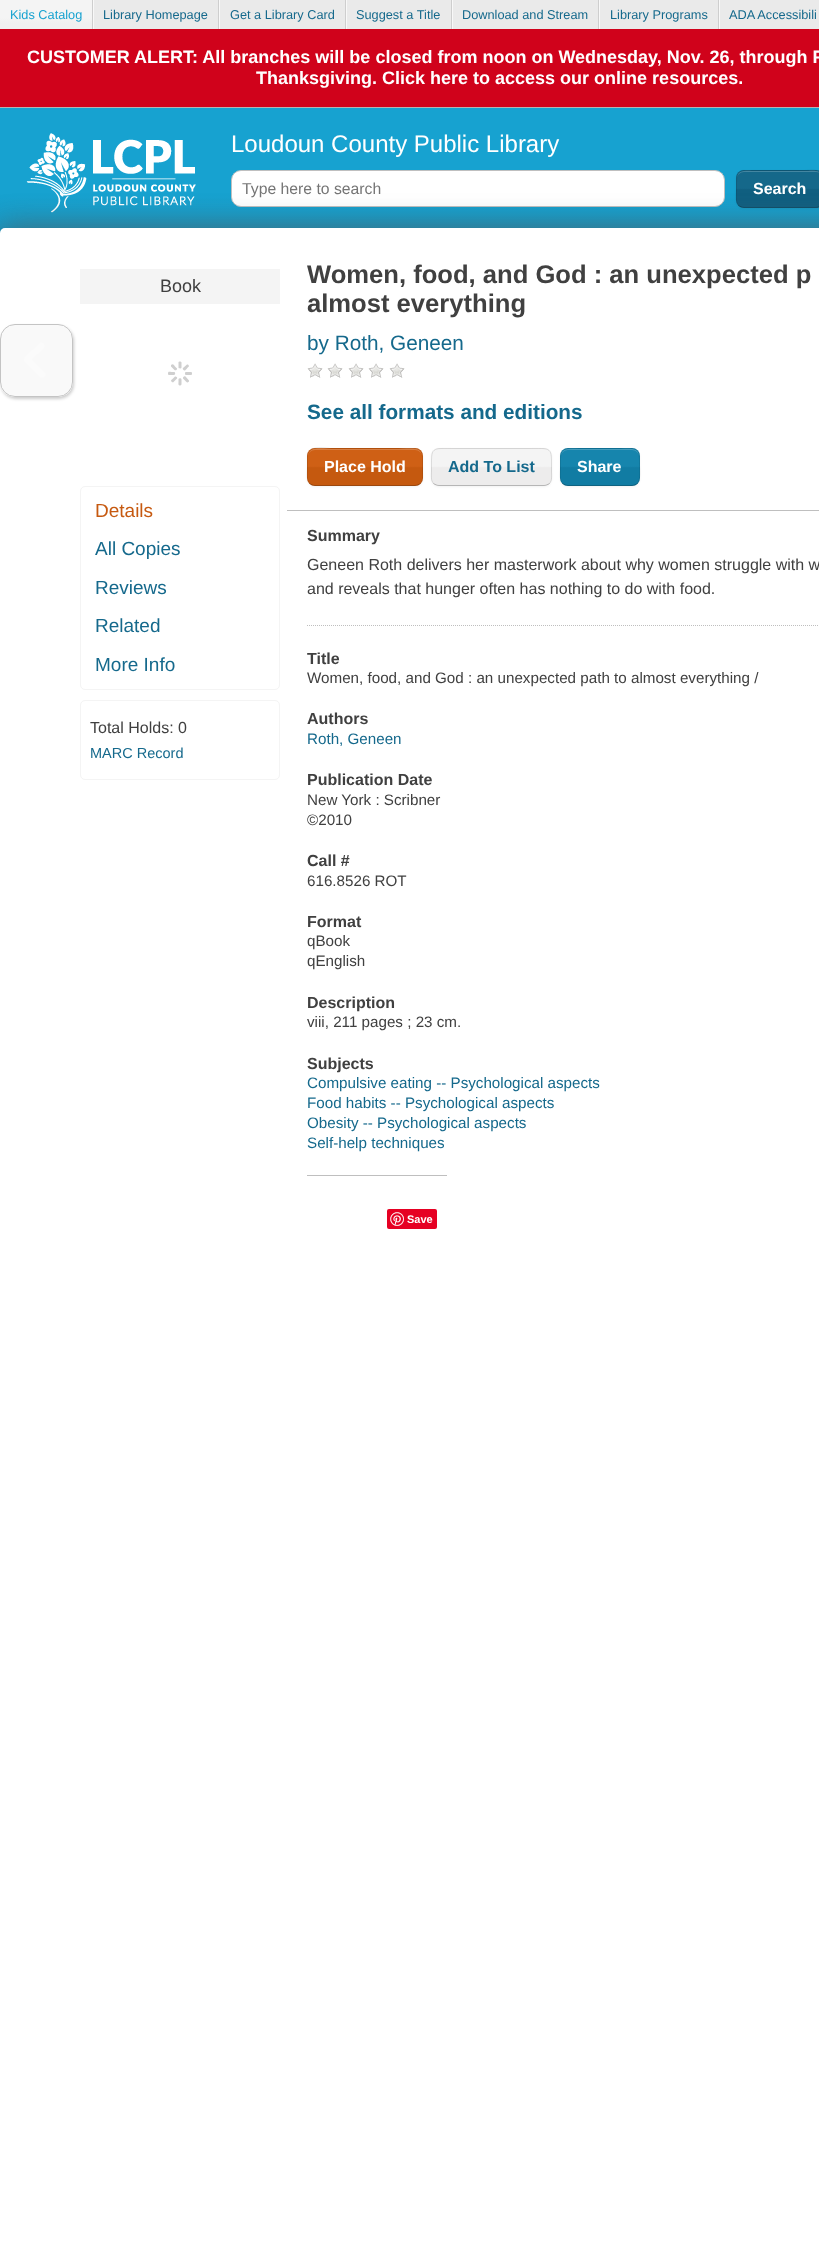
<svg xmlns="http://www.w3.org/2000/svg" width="819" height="2246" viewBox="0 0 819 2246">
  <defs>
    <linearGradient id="g1" gradientUnits="userSpaceOnUse" x1="46" y1="0" x2="46" y2="29"><stop offset="0.6" stop-color="rgb(244,244,244)"/><stop offset="0.8" stop-color="rgb(240,240,240)"/></linearGradient>
    <linearGradient id="g2" gradientUnits="userSpaceOnUse" x1="500" y1="108" x2="500" y2="278"><stop offset="0.5" stop-color="rgb(23,162,208)"/><stop offset="1" stop-color="rgb(21,143,184)"/></linearGradient>
    <clipPath id="clip1"><rect x="736" y="170" width="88" height="38" rx="8"/></clipPath>
    <linearGradient id="g3" gradientUnits="userSpaceOnUse" x1="780" y1="135" x2="780" y2="171"><stop offset="0.48" stop-color="rgb(21,104,138)"/><stop offset="0.52" stop-color="rgb(16,95,128)"/></linearGradient>
    <linearGradient id="g4" gradientUnits="userSpaceOnUse" x1="780" y1="171" x2="780" y2="207"><stop offset="0.48" stop-color="rgb(21,104,138)"/><stop offset="0.52" stop-color="rgb(16,95,128)"/></linearGradient>
    <linearGradient id="g5" gradientUnits="userSpaceOnUse" x1="780" y1="207" x2="780" y2="243"><stop offset="0.48" stop-color="rgb(21,104,138)"/><stop offset="0.52" stop-color="rgb(16,95,128)"/></linearGradient>
    <clipPath id="clip2"><path d="M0 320H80V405H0ZM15 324H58C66.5 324 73 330.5 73 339V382C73 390.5 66.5 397 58 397H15C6.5 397 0 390.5 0 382V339C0 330.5 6.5 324 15 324Z" clip-rule="evenodd"/></clipPath>
    <clipPath id="clip3"><rect x="307" y="448" width="116" height="38" rx="8"/></clipPath>
    <linearGradient id="g6" gradientUnits="userSpaceOnUse" x1="365" y1="413" x2="365" y2="449"><stop offset="0.48" stop-color="rgb(207,96,21)"/><stop offset="0.52" stop-color="rgb(197,89,15)"/></linearGradient>
    <linearGradient id="g7" gradientUnits="userSpaceOnUse" x1="365" y1="449" x2="365" y2="485"><stop offset="0.48" stop-color="rgb(207,96,21)"/><stop offset="0.52" stop-color="rgb(197,89,15)"/></linearGradient>
    <linearGradient id="g8" gradientUnits="userSpaceOnUse" x1="365" y1="485" x2="365" y2="521"><stop offset="0.48" stop-color="rgb(207,96,21)"/><stop offset="0.52" stop-color="rgb(197,89,15)"/></linearGradient>
    <clipPath id="clip4"><rect x="431" y="448" width="121" height="38" rx="8"/></clipPath>
    <linearGradient id="g9" gradientUnits="userSpaceOnUse" x1="492" y1="413" x2="492" y2="449"><stop offset="0.48" stop-color="rgb(244,244,244)"/><stop offset="0.52" stop-color="rgb(237,236,236)"/></linearGradient>
    <linearGradient id="g10" gradientUnits="userSpaceOnUse" x1="492" y1="449" x2="492" y2="485"><stop offset="0.48" stop-color="rgb(244,244,244)"/><stop offset="0.52" stop-color="rgb(237,236,236)"/></linearGradient>
    <clipPath id="clip5"><rect x="560" y="448" width="80" height="38" rx="8"/></clipPath>
    <linearGradient id="g11" gradientUnits="userSpaceOnUse" x1="600" y1="413" x2="600" y2="449"><stop offset="0.48" stop-color="rgb(22,133,173)"/><stop offset="0.52" stop-color="rgb(17,124,163)"/></linearGradient>
    <linearGradient id="g12" gradientUnits="userSpaceOnUse" x1="600" y1="449" x2="600" y2="485"><stop offset="0.48" stop-color="rgb(22,133,173)"/><stop offset="0.52" stop-color="rgb(17,124,163)"/></linearGradient>
    <linearGradient id="g13" gradientUnits="userSpaceOnUse" x1="600" y1="485" x2="600" y2="521"><stop offset="0.48" stop-color="rgb(22,133,173)"/><stop offset="0.52" stop-color="rgb(17,124,163)"/></linearGradient>
  </defs>
  <rect width="100%" height="100%" fill="rgb(234,234,234)"/>
  <rect x="93" y="0" width="1" height="29" fill="rgb(248,248,248)"/>
  <rect x="0" y="0" width="92" height="29" fill="url(#g1)"/>
  <rect x="92" y="0" width="1" height="29" fill="rgb(206,206,206)"/>
  <text x="10" y="19" font-family="Liberation Sans" font-size="12.75" fill="rgb(23,162,208)">Kids Catalog</text>
  <rect x="219" y="0" width="1" height="29" fill="rgb(248,248,248)"/>
  <rect x="218" y="0" width="1" height="29" fill="rgb(206,206,206)"/>
  <text x="103" y="19" font-family="Liberation Sans" font-size="12.75" fill="rgb(21,105,140)">Library Homepage</text>
  <rect x="346" y="0" width="1" height="29" fill="rgb(248,248,248)"/>
  <rect x="345" y="0" width="1" height="29" fill="rgb(206,206,206)"/>
  <text x="230" y="19" font-family="Liberation Sans" font-size="12.75" fill="rgb(21,105,140)">Get a Library Card</text>
  <rect x="452" y="0" width="1" height="29" fill="rgb(248,248,248)"/>
  <rect x="451" y="0" width="1" height="29" fill="rgb(206,206,206)"/>
  <text x="356" y="19" font-family="Liberation Sans" font-size="12.75" fill="rgb(21,105,140)">Suggest a Title</text>
  <rect x="599" y="0" width="1" height="29" fill="rgb(248,248,248)"/>
  <rect x="598" y="0" width="1" height="29" fill="rgb(206,206,206)"/>
  <text x="462" y="19" font-family="Liberation Sans" font-size="12.75" fill="rgb(21,105,140)">Download and Stream</text>
  <rect x="719" y="0" width="1" height="29" fill="rgb(248,248,248)"/>
  <rect x="718" y="0" width="1" height="29" fill="rgb(206,206,206)"/>
  <g font-family="Liberation Sans" font-size="12.75" fill="rgb(21,105,140)">
    <text x="610" y="19">Library Programs</text>
    <text x="729" y="19">ADA Accessibili</text>
  </g>
  <rect x="0" y="29" width="819" height="78" fill="rgb(208,2,27)"/>
  <g font-family="Liberation Sans" font-size="18" font-weight="bold" fill="rgb(255,255,255)">
    <text x="27" y="63">CUSTOMER ALERT: All branches will be closed from noon on Wednesday, Nov. 26, through F</text>
    <text x="256" y="84">Thanksgiving. Click here to access our online resources.</text>
  </g>
  <rect x="0" y="108" width="819" height="125" fill="url(#g2)"/>
  <rect x="0" y="107" width="819" height="1" fill="rgb(180,180,180)"/>
  <image x="26" y="133" width="170" height="80" href="pic1.png"/>
  <text x="231" y="152" font-family="Liberation Sans" font-size="24" fill="rgb(255,255,255)">Loudoun County Public Library</text>
  <rect x="231.5" y="170.5" width="493" height="36" rx="9.5" fill="rgb(255,255,255)" stroke="rgb(191,191,191)"/>
  <text x="242" y="194" font-family="Liberation Sans" font-size="15.75" fill="rgb(117,117,117)">Type here to search</text>
  <rect x="736" y="171" width="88" height="38" rx="8" fill="rgba(0,0,0,0.05)" filter="blur(1px)"/>
  <g clip-path="url(#clip1)">
    <rect x="736" y="170" width="83" height="1" fill="url(#g3)"/>
    <rect x="736" y="171" width="83" height="36" fill="url(#g4)"/>
    <rect x="736" y="207" width="83" height="1" fill="url(#g5)"/>
  </g>
  <path d="M744 172H816C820 172 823 175 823 179C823 168 811 171 804 171H756C749 171 737 168 737 179C737 175 740 172 744 172Z" fill="rgb(68,134,161)"/>
  <path d="M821.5 205.5C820 206.5 818 207.5 816 207.5H744C742 207.5 740 206.5 738.5 205.5" fill="none" stroke="rgba(0,0,0,0.25)"/>
  <path d="M738.5 205.5C735 201.5 736.5 193.5 736.5 189C736.5 169.5 736 170.5 756 170.5H804C809.5 170.5 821.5 168 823.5 176.5V185.5C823.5 190 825 201.5 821.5 205.5" fill="none" stroke="rgba(0,0,0,0.1)"/>
  <text x="753" y="194" font-family="Liberation Sans" font-size="16" font-weight="bold" fill="rgb(255,255,255)">Search</text>
  <rect x="0" y="228" width="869" height="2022" rx="5" fill="rgba(85,85,85,0.7)" filter="blur(15px)"/>
  <rect x="0" y="228" width="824" height="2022" rx="5" fill="rgb(255,255,255)"/>
  <g clip-path="url(#clip2)">
    <rect x="1" y="326" width="73" height="73" rx="15" fill="rgba(0,0,0,0.2)" filter="blur(1.5px)"/>
  </g>
  <image x="1" y="324" width="71" height="72" href="pic2.png"/>
  <rect x="0.5" y="324.5" width="72" height="72" rx="14.5" fill="none" stroke="rgb(196,196,196)"/>
  <rect x="80" y="269" width="200" height="35" fill="rgb(244,244,244)"/>
  <text x="160" y="292" font-family="Liberation Sans" font-size="18" fill="rgb(64,64,64)">Book</text>
  <rect x="185" y="372" width="7" height="3" rx="1" fill="rgb(207,207,207)"/>
  <path d="M185.5 376.5L189 380.5V381.5C187 383.5 186.5 382 185 380.5L183 378.5C182.5 377 184.5 375.5 185.5 376.5ZM181.5 379.5V384.5L180.5 385.5C178 385.5 178.5 384 178.5 382V379C179 378 181.5 378 181.5 379.5ZM177 378.5L173 382.5L172 382C170 380.5 171.5 380 173 378.5L175 376.5C176 376 178 377.5 177 378.5ZM174 375H168.5L168 374C168 371 169 372 171.5 372H174.5C175.5 372.5 175.5 375 174 375ZM174.5 370L171 366.5V365C173 363.5 173.5 364.5 175 366.5L177 368.5C177.5 369.5 175.5 371 174.5 370Z" fill="rgb(207,207,207)"/>
  <path d="M178.5 367.5V362L179.5 361.5C182 361.5 181.5 362.5 181.5 365V367.5C181 369 178.5 368.5 178.5 367.5ZM183 368L187 364.5H188C190 366.5 188.5 366.5 187 368.5L185 370.5C184 371 182 369 183 368Z" fill="rgb(207,207,207)"/>
  <rect x="80.5" y="486.5" width="199" height="203" rx="4.5" fill="none" stroke="rgb(244,244,244)"/>
  <text x="95" y="517" font-family="Liberation Sans" font-size="19" fill="rgb(198,89,16)">Details</text>
  <g font-family="Liberation Sans" font-size="19" fill="rgb(21,105,140)">
    <text x="95" y="555">All Copies</text>
    <text x="95" y="594">Reviews</text>
    <text x="95" y="632">Related</text>
    <text x="95" y="671">More Info</text>
  </g>
  <rect x="80.5" y="700.5" width="199" height="79" rx="4.5" fill="none" stroke="rgb(244,244,244)"/>
  <text x="90" y="733" font-family="Liberation Sans" font-size="16" fill="rgb(64,64,64)">Total Holds: 0</text>
  <text x="90" y="758" font-family="Liberation Sans" font-size="14.5" fill="rgb(21,105,140)">MARC Record</text>
  <rect x="287" y="510" width="532" height="1" fill="rgb(191,191,191)"/>
  <g font-family="Liberation Sans" font-size="25.6" font-weight="bold" fill="rgb(64,64,64)">
    <text>
      <tspan x="307" y="283">Women, food, and God : an unexpected p</tspan>
      <tspan x="307" y="312">almost everything</tspan>
    </text>
  </g>
  <text x="307" y="350" font-family="Liberation Sans" font-size="20.75" fill="rgb(21,105,140)">by Roth, Geneen</text>
  <image x="307" y="363" width="16" height="15" href="pic3.png"/>
  <image x="327" y="363" width="16" height="15" href="pic3.png"/>
  <image x="348" y="363" width="16" height="15" href="pic3.png"/>
  <image x="368" y="363" width="16" height="15" href="pic3.png"/>
  <image x="389" y="363" width="16" height="15" href="pic3.png"/>
  <text x="307" y="419" font-family="Liberation Sans" font-size="20.75" font-weight="bold" fill="rgb(21,105,140)">See all formats and editions</text>
  <rect x="307" y="449" width="116" height="38" rx="8" fill="rgba(0,0,0,0.05)" filter="blur(1px)"/>
  <g clip-path="url(#clip3)">
    <rect x="307" y="448" width="116" height="1" fill="url(#g6)"/>
    <rect x="307" y="449" width="116" height="36" fill="url(#g7)"/>
    <rect x="307" y="485" width="116" height="1" fill="url(#g8)"/>
  </g>
  <path d="M315 450H415C419 450 422 453 422 457C422 445 406 449 398 449H332C324 449 308 445 308 457C308 453 311 450 315 450Z" fill="rgba(255,255,255,0.2)"/>
  <path d="M420.5 483.5C419 484.5 417 485.5 415 485.5H315C313 485.5 311 484.5 309.5 483.5" fill="none" stroke="rgba(0,0,0,0.25)"/>
  <path d="M309.5 483.5C306 479.5 307.5 471.5 307.5 467V454.5C309.5 444.5 327 448.5 331.5 448.5H398.5C424.5 448.5 422.5 446 422.5 470.5C422.5 475 423.5 480 420.5 483.5" fill="none" stroke="rgba(0,0,0,0.1)"/>
  <text x="324" y="472" font-family="Liberation Sans" font-size="16" font-weight="bold" fill="rgb(255,255,255)">Place Hold</text>
  <rect x="431" y="449" width="121" height="38" rx="8" fill="rgba(0,0,0,0.05)" filter="blur(1px)"/>
  <g clip-path="url(#clip4)">
    <rect x="431" y="448" width="121" height="1" fill="url(#g9)"/>
    <rect x="431" y="449" width="121" height="36" fill="url(#g10)"/>
  </g>
  <path d="M549.5 483.5C548 484.5 546 485.5 544 485.5H439C437 485.5 435 484.5 433.5 483.5" fill="none" stroke="rgba(0,0,0,0.25)"/>
  <path d="M433.5 483.5C430.5 480 431.5 475 431.5 470.5C431.5 446 430 448.5 456.5 448.5H526.5C553 448.5 551.5 446 551.5 470.5C551.5 475 552.5 480 549.5 483.5" fill="none" stroke="rgba(0,0,0,0.1)"/>
  <text x="448" y="472" font-family="Liberation Sans" font-size="16" font-weight="bold" fill="rgb(21,105,140)">Add To List</text>
  <rect x="560" y="449" width="80" height="38" rx="8" fill="rgba(0,0,0,0.05)" filter="blur(1px)"/>
  <g clip-path="url(#clip5)">
    <rect x="560" y="448" width="80" height="1" fill="url(#g11)"/>
    <rect x="560" y="449" width="80" height="36" fill="url(#g12)"/>
    <rect x="560" y="485" width="80" height="1" fill="url(#g13)"/>
  </g>
  <path d="M568 450H632C636 450 639 453 639 457C639 447 629 449 621 449H579C571 449 561 447 561 457C561 453 564 450 568 450Z" fill="rgb(69,157,189)"/>
  <path d="M637.5 483.5C636 484.5 634 485.5 632 485.5H568C566 485.5 564 484.5 562.5 483.5" fill="none" stroke="rgba(0,0,0,0.25)"/>
  <path d="M562.5 483.5C559 479.5 560.5 471.5 560.5 467C560.5 448.5 559.5 448.5 578.5 448.5H621.5C637.5 448.5 639.5 447 639.5 463.5C639.5 468 641 479.5 637.5 483.5" fill="none" stroke="rgba(0,0,0,0.1)"/>
  <text x="577" y="472" font-family="Liberation Sans" font-size="16" font-weight="bold" fill="rgb(255,255,255)">Share</text>
  <text x="307" y="541" font-family="Liberation Sans" font-size="16" font-weight="bold" fill="rgb(64,64,64)">Summary</text>
  <path d="M307 625.5H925" fill="none" stroke="rgb(191,191,191)" stroke-dasharray="1 1"/>
  <g font-family="Liberation Sans" font-size="16" fill="rgb(64,64,64)">
    <text>
      <tspan x="307" y="570">Geneen Roth delivers her masterwork about why women struggle with w</tspan>
      <tspan x="307" y="594">and reveals that hunger often has nothing to do with food.</tspan>
    </text>
  </g>
  <text x="307" y="664" font-family="Liberation Sans" font-size="16" font-weight="bold" fill="rgb(64,64,64)">Title</text>
  <text x="307" y="683" font-family="Liberation Sans" font-size="15.2" fill="rgb(64,64,64)">Women, food, and God : an unexpected path to almost everything /</text>
  <text x="307" y="724" font-family="Liberation Sans" font-size="16" font-weight="bold" fill="rgb(64,64,64)">Authors</text>
  <text x="307" y="744" font-family="Liberation Sans" font-size="15.2" fill="rgb(21,105,140)">Roth, Geneen</text>
  <text x="307" y="785" font-family="Liberation Sans" font-size="16" font-weight="bold" fill="rgb(64,64,64)">Publication Date</text>
  <g font-family="Liberation Sans" font-size="15.2" fill="rgb(64,64,64)">
    <text>
      <tspan x="307" y="805">New York : Scribner</tspan>
      <tspan x="307" y="825">©2010</tspan>
    </text>
  </g>
  <text x="307" y="866" font-family="Liberation Sans" font-size="16" font-weight="bold" fill="rgb(64,64,64)">Call #</text>
  <text x="307" y="886" font-family="Liberation Sans" font-size="15.2" fill="rgb(64,64,64)">616.8526 ROT</text>
  <text x="307" y="927" font-family="Liberation Sans" font-size="16" font-weight="bold" fill="rgb(64,64,64)">Format</text>
  <g font-family="Liberation Sans" font-size="15.2" fill="rgb(64,64,64)">
    <text>
      <tspan x="307" y="946">qBook</tspan>
      <tspan x="307" y="966">qEnglish</tspan>
    </text>
  </g>
  <text x="307" y="1008" font-family="Liberation Sans" font-size="16" font-weight="bold" fill="rgb(64,64,64)">Description</text>
  <text x="307" y="1027" font-family="Liberation Sans" font-size="15.2" fill="rgb(64,64,64)">viii, 211 pages ; 23 cm.</text>
  <text x="307" y="1069" font-family="Liberation Sans" font-size="16" font-weight="bold" fill="rgb(64,64,64)">Subjects</text>
  <g font-family="Liberation Sans" font-size="15.2" fill="rgb(21,105,140)">
    <text>
      <tspan x="307" y="1088">Compulsive eating -- Psychological aspects</tspan>
      <tspan x="307" y="1108">Food habits -- Psychological aspects</tspan>
      <tspan x="307" y="1128">Obesity -- Psychological aspects</tspan>
      <tspan x="307" y="1148">Self-help techniques</tspan>
    </text>
  </g>
  <rect x="307" y="1175" width="140" height="1" fill="rgb(191,191,191)"/>
  <rect x="387" y="1209" width="50" height="20" rx="2" fill="rgb(230,0,35)"/>
  <image x="390" y="1212" width="14" height="14" href="pic4.png"/>
  <text x="407" y="1223" font-family="Liberation Sans" font-size="11" font-weight="bold" fill="rgb(255,255,255)">Save</text>
</svg>
